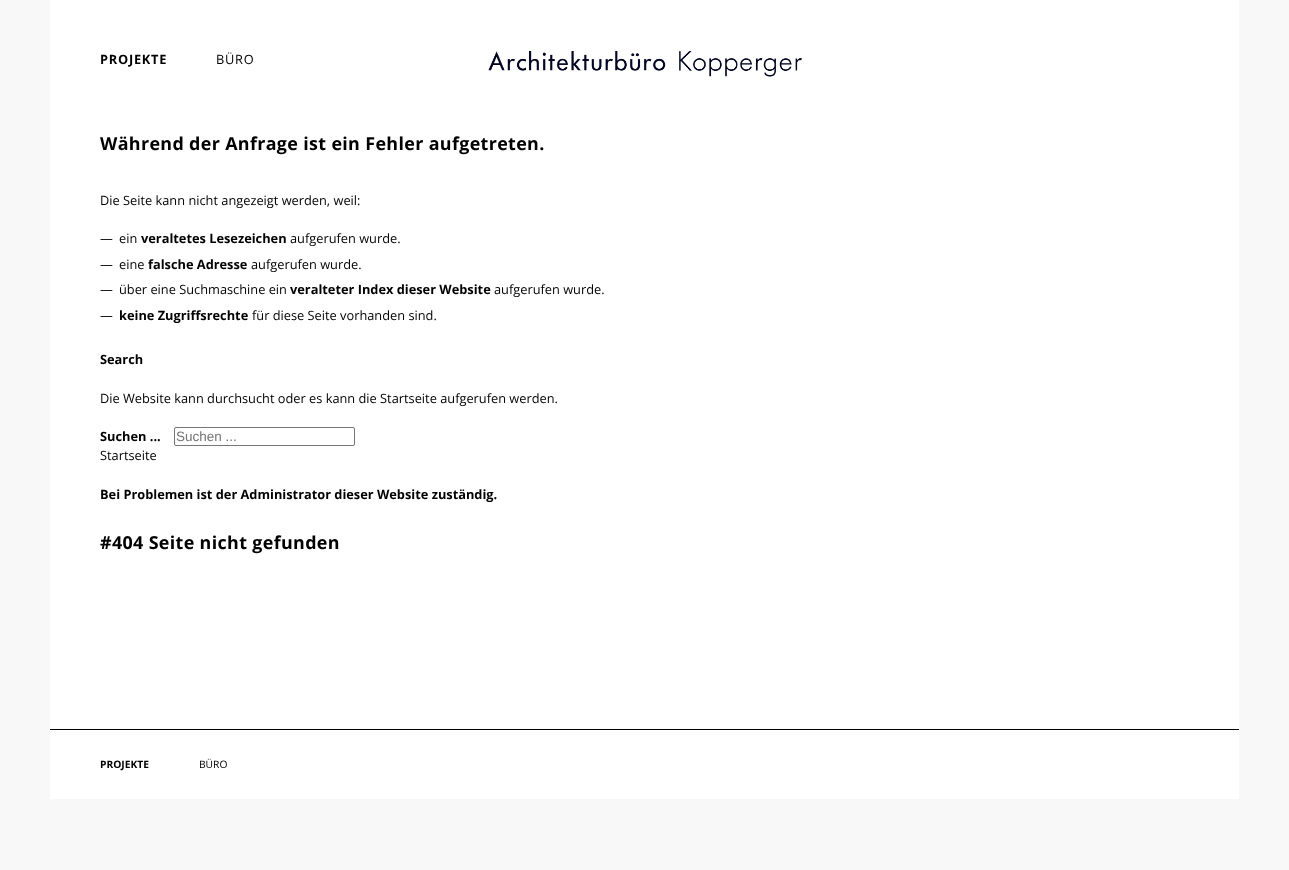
<svg xmlns="http://www.w3.org/2000/svg" width="1289" height="870" viewBox="0 0 1289 870">
  <rect width="100%" height="100%" fill="rgb(248,248,248)"/>
  <rect x="50" y="0" width="1189" height="729" fill="rgb(255,255,255)"/>
  <text x="100" y="64" font-family="Open Sans" font-size="12.8" font-weight="bold" letter-spacing="0.75" fill="rgb(0,0,0)">PROJEKTE</text>
  <text x="216" y="64" font-family="Open Sans" font-size="12.8" letter-spacing="0.75" fill="rgb(0,0,0)">BÜRO</text>
  <image x="488" y="51" width="314" height="26" href="pic1.png"/>
  <text x="100" y="150" font-family="Open Sans" font-size="17.9" font-weight="bold" letter-spacing="0.35" fill="rgb(0,0,0)">Während der Anfrage ist ein Fehler aufgetreten.</text>
  <g font-family="Open Sans" font-size="12.8" fill="rgb(0,0,0)">
    <text x="100" y="205">Die Seite kann nicht angezeigt werden, weil:</text>
    <text x="100" y="243">—</text>
    <text x="119" y="243">ein</text>
  </g>
  <text x="141" y="243" font-family="Open Sans" font-size="12.8" font-weight="bold" fill="rgb(0,0,0)">veraltetes Lesezeichen</text>
  <g font-family="Open Sans" font-size="12.8" fill="rgb(0,0,0)">
    <text x="290" y="243">aufgerufen wurde.</text>
    <text x="100" y="269">—</text>
    <text x="119" y="269">eine</text>
  </g>
  <text x="148" y="269" font-family="Open Sans" font-size="12.8" font-weight="bold" fill="rgb(0,0,0)">falsche Adresse</text>
  <g font-family="Open Sans" font-size="12.8" fill="rgb(0,0,0)">
    <text x="251" y="269">aufgerufen wurde.</text>
    <text x="100" y="294">—</text>
    <text x="119" y="294">über eine Suchmaschine ein</text>
  </g>
  <text x="290" y="294" font-family="Open Sans" font-size="12.8" font-weight="bold" fill="rgb(0,0,0)">veralteter Index dieser Website</text>
  <g font-family="Open Sans" font-size="12.8" fill="rgb(0,0,0)">
    <text x="494" y="294">aufgerufen wurde.</text>
    <text x="100" y="320">—</text>
  </g>
  <text x="119" y="320" font-family="Open Sans" font-size="12.8" font-weight="bold" fill="rgb(0,0,0)">keine Zugriffsrechte</text>
  <text x="252" y="320" font-family="Open Sans" font-size="12.8" fill="rgb(0,0,0)">für diese Seite vorhanden sind.</text>
  <text x="100" y="364" font-family="Open Sans" font-size="12.8" font-weight="bold" fill="rgb(0,0,0)">Search</text>
  <text x="100" y="403" font-family="Open Sans" font-size="12.8" fill="rgb(0,0,0)">Die Website kann durchsucht oder es kann die Startseite aufgerufen werden.</text>
  <text x="100" y="441" font-family="Open Sans" font-size="12.8" font-weight="bold" fill="rgb(0,0,0)">Suchen ...</text>
  <rect x="174.5" y="427.5" width="180" height="18" rx="1.5" fill="none" stroke="rgb(118,118,118)"/>
  <text x="176" y="441" font-family="Liberation Sans" font-size="13.5" fill="rgb(117,117,117)">Suchen ...</text>
  <text x="100" y="460" font-family="Open Sans" font-size="12.8" fill="rgb(0,0,0)">Startseite</text>
  <text x="100" y="499" font-family="Open Sans" font-size="12.8" font-weight="bold" fill="rgb(0,0,0)">Bei Problemen ist der Administrator dieser Website zuständig.</text>
  <text x="100" y="549" font-family="Open Sans" font-size="17.9" font-weight="bold" letter-spacing="0.35" fill="rgb(0,0,0)">#404 Seite nicht gefunden</text>
  <rect x="50" y="730" width="1189" height="69" fill="rgb(255,255,255)"/>
  <rect x="50" y="729" width="1189" height="1" fill="rgb(0,0,0)"/>
  <text x="100" y="768" font-family="Open Sans" font-size="10.25" font-weight="bold" fill="rgb(0,0,0)">PROJEKTE</text>
  <text x="199" y="768" font-family="Open Sans" font-size="10.25" fill="rgb(0,0,0)">BÜRO</text>
</svg>
